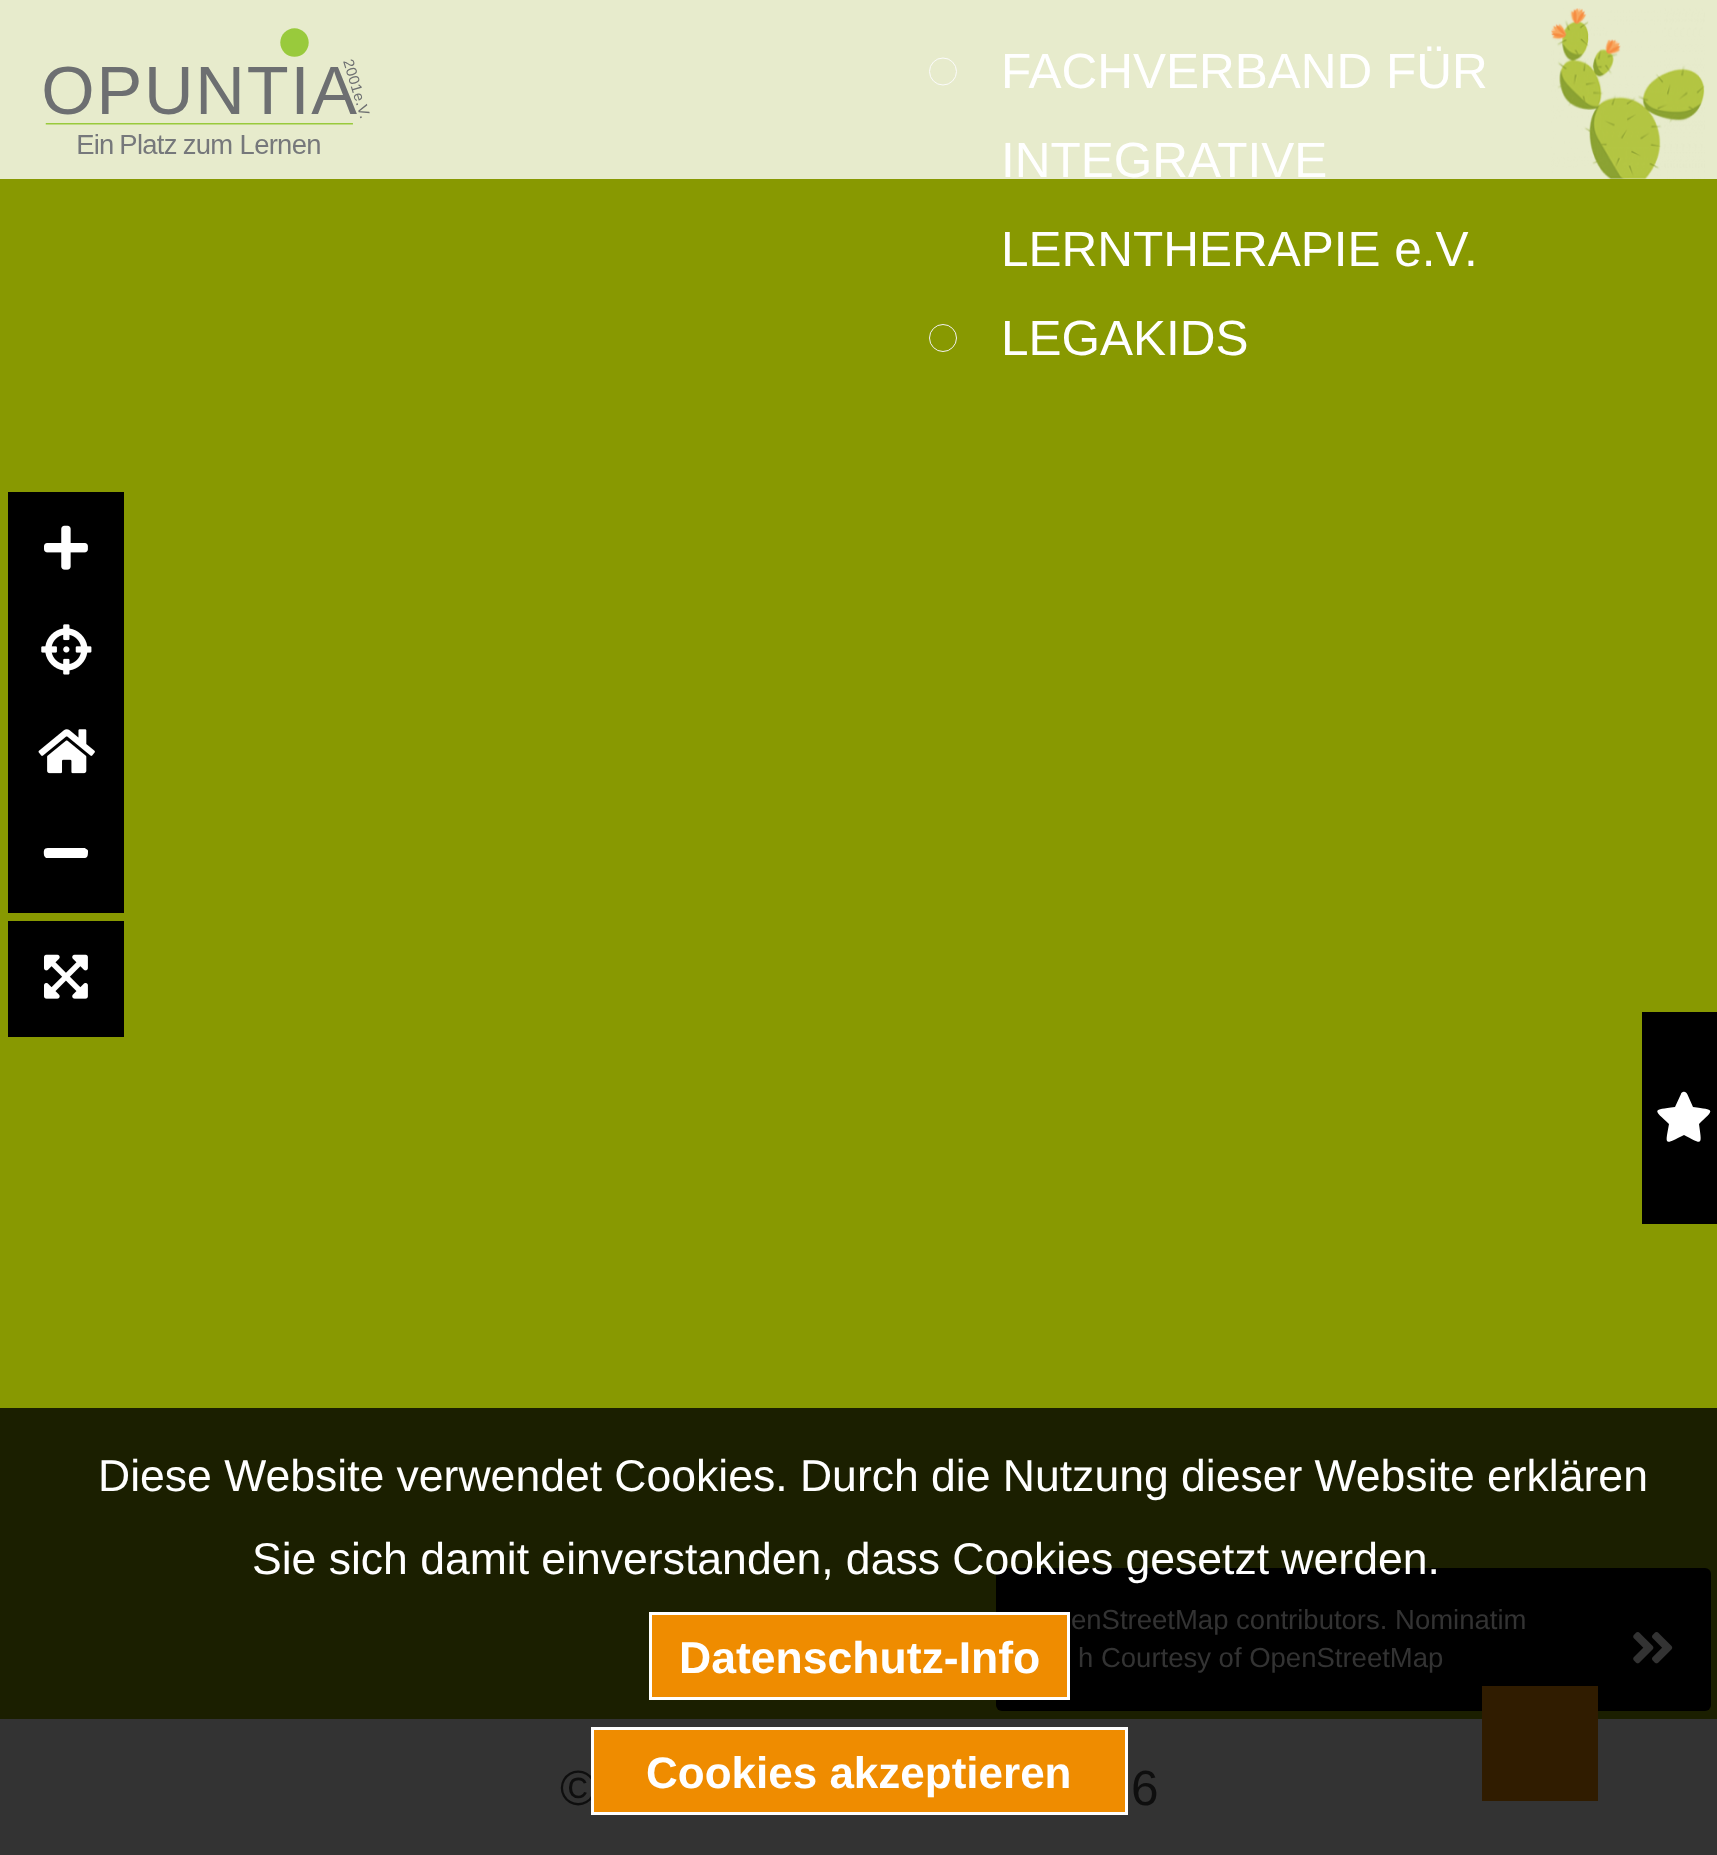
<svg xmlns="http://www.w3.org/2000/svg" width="1717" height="1855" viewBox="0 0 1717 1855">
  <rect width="100%" height="100%" fill="rgb(51,51,51)"/>
  <rect x="0" y="0" width="1717" height="179" fill="rgb(231,235,204)"/>
  <image x="44" y="28" width="326" height="126" href="pic1.png"/>
  <image x="1551" y="8" width="154" height="171" href="pic2.png"/>
  <rect x="0" y="179" width="1717" height="1229" fill="rgb(136,153,1)"/>
  <rect x="0" y="1408" width="1717" height="311" fill="rgb(27,31,0)"/>
  <circle cx="943" cy="71.5" r="13.5" fill="none" stroke="rgb(252,252,252)"/>
  <g font-family="Liberation Sans" font-size="49.5" fill="rgb(255,255,255)">
    <text>
      <tspan x="1001" y="88">FACHVERBAND FÜR</tspan>
      <tspan x="1001" y="177">INTEGRATIVE</tspan>
      <tspan x="1001" y="266">LERNTHERAPIE e.V.</tspan>
    </text>
  </g>
  <circle cx="943" cy="338" r="13.5" fill="none" stroke="rgb(242,242,242)"/>
  <text x="1001" y="355" font-family="Liberation Sans" font-size="49.5" fill="rgb(255,255,255)">LEGAKIDS</text>
  <rect x="8" y="492" width="116" height="421" fill="rgb(0,0,0)"/>
  <image x="44" y="525" width="44" height="45" href="pic3.png"/>
  <image x="41" y="624" width="51" height="51" href="pic4.png"/>
  <image x="38" y="729" width="57" height="45" href="pic5.png"/>
  <path d="M85 848H53C46 848 43 847 44 855C44 856 45 857 46 858H85C88 858 88 854 88 851C88 850 87 849 86 849Z" fill="rgb(255,255,255)"/>
  <rect x="8" y="921" width="116" height="116" fill="rgb(0,0,0)"/>
  <image x="44" y="954" width="44" height="45" href="pic6.png"/>
  <rect x="1642" y="1012" width="75" height="212" fill="rgb(0,0,0)"/>
  <path d="M1681 1094L1675 1107C1652 1110 1653 1109 1669 1124C1665 1146 1664 1145 1684 1135C1703 1145 1702 1146 1699 1124C1715 1109 1715 1110 1693 1107L1689 1098C1688 1096 1687 1091 1683 1092C1682 1092 1681 1093 1681 1094Z" fill="rgb(255,255,255)"/>
  <rect x="996" y="1568" width="715" height="143" rx="6" fill="rgb(0,0,0)"/>
  <g font-family="Liberation Sans" font-size="27.5" fill="rgb(51,51,51)">
    <text x="1071" y="1629">enStreetMap contributors. Nominatim</text>
    <text x="1078" y="1667">h Courtesy of OpenStreetMap</text>
  </g>
  <image x="1633" y="1632" width="40" height="32" href="pic7.png"/>
  <g font-family="Liberation Sans" font-size="44.55" fill="rgb(255,255,255)">
    <text x="98" y="1491" word-spacing="-0.1">Diese Website verwendet Cookies. Durch die Nutzung dieser Website erklären</text>
    <text x="252" y="1574" word-spacing="-0.1">Sie sich damit einverstanden, dass Cookies gesetzt werden.</text>
  </g>
  <rect x="650.5" y="1613.5" width="418" height="85" fill="rgb(239,140,0)" stroke="rgb(255,255,255)" stroke-width="3"/>
  <text x="679" y="1673" font-family="Liberation Sans" font-size="44.55" font-weight="bold" fill="rgb(255,255,255)">Datenschutz-Info</text>
  <text x="560" y="1805" font-family="Liberation Sans" font-size="49.5" fill="rgb(14,14,14)">©</text>
  <rect x="592.5" y="1728.5" width="534" height="85" fill="rgb(239,140,0)" stroke="rgb(255,255,255)" stroke-width="3"/>
  <text x="646" y="1788" font-family="Liberation Sans" font-size="44" font-weight="bold" fill="rgb(255,255,255)">Cookies akzeptieren</text>
  <text x="1131" y="1805" font-family="Liberation Sans" font-size="49.5" fill="rgb(14,14,14)">6</text>
  <rect x="1482" y="1686" width="116" height="115" fill="rgb(48,28,0)"/>
</svg>
